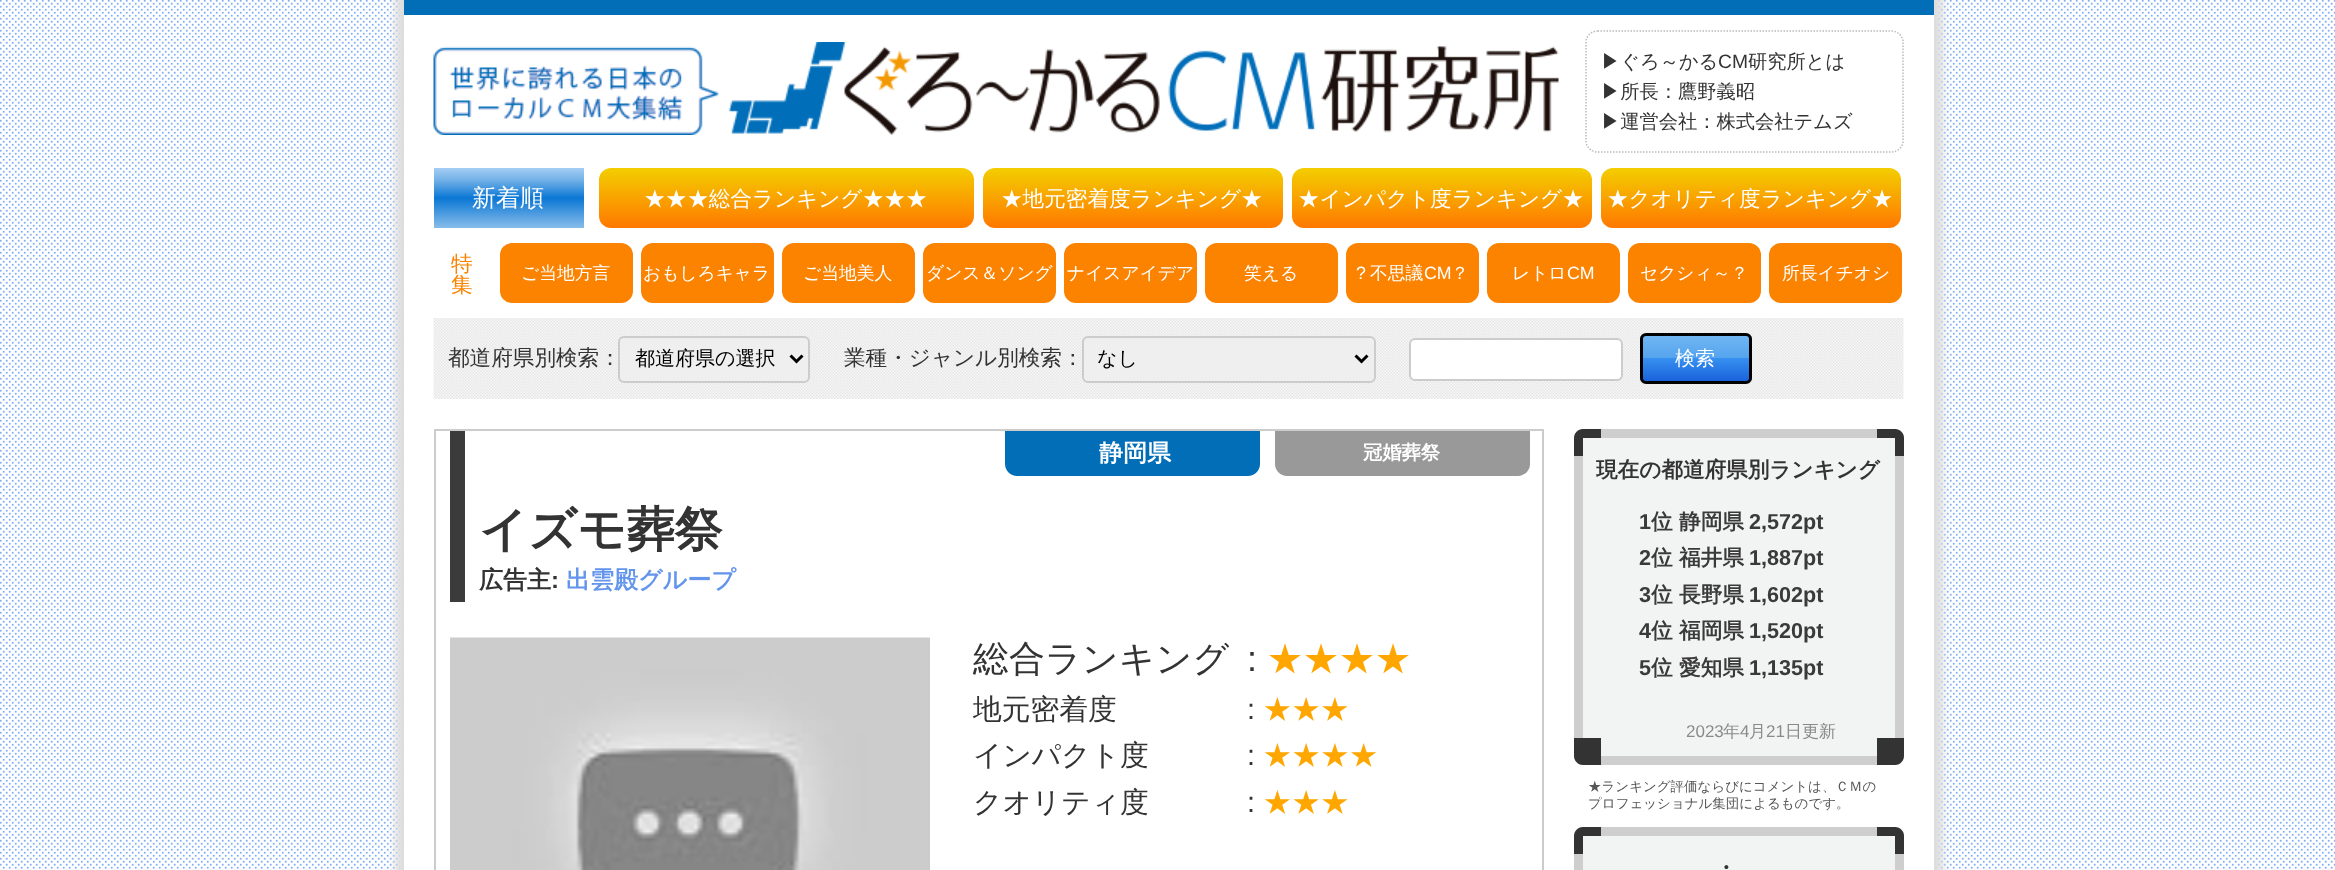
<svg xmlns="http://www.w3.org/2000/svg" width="2335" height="870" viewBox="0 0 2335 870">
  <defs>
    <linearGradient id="g1" gradientUnits="userSpaceOnUse" x1="509" y1="168" x2="509" y2="228"><stop offset="0" stop-color="rgb(164,205,244)"/><stop offset="0.2" stop-color="rgb(115,177,231)"/><stop offset="0.5" stop-color="rgb(10,119,213)"/><stop offset="0.79" stop-color="rgb(83,159,225)"/><stop offset="1" stop-color="rgb(135,188,234)"/></linearGradient>
    <linearGradient id="g2" gradientUnits="userSpaceOnUse" x1="786" y1="168" x2="786" y2="228"><stop offset="0" stop-color="rgb(243,206,0)"/><stop offset="1" stop-color="rgb(255,120,0)"/></linearGradient>
    <linearGradient id="g3" gradientUnits="userSpaceOnUse" x1="1133" y1="168" x2="1133" y2="228"><stop offset="0" stop-color="rgb(243,206,0)"/><stop offset="1" stop-color="rgb(255,120,0)"/></linearGradient>
    <linearGradient id="g4" gradientUnits="userSpaceOnUse" x1="1442" y1="168" x2="1442" y2="228"><stop offset="0" stop-color="rgb(243,206,0)"/><stop offset="1" stop-color="rgb(255,120,0)"/></linearGradient>
    <linearGradient id="g5" gradientUnits="userSpaceOnUse" x1="1751" y1="168" x2="1751" y2="228"><stop offset="0" stop-color="rgb(243,206,0)"/><stop offset="1" stop-color="rgb(255,120,0)"/></linearGradient>
    <clipPath id="clip1"><rect x="1640" y="333" width="112" height="51" rx="6"/></clipPath>
    <linearGradient id="g6" gradientUnits="userSpaceOnUse" x1="1696" y1="336" x2="1696" y2="381"><stop offset="0" stop-color="rgb(112,182,242)"/><stop offset="0.5" stop-color="rgb(84,163,238)"/><stop offset="0.5" stop-color="rgb(54,144,240)"/><stop offset="1" stop-color="rgb(26,98,219)"/></linearGradient>
  </defs>
  <rect width="100%" height="100%" fill="rgb(255,255,255)"/>
  <image x="0" y="0" width="2335" height="870" href="pic1.png"/>
  <rect x="395" y="-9" width="1548" height="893" fill="rgb(221,221,221)" filter="blur(4.5px)"/>
  <rect x="404" y="15" width="1530" height="855" fill="rgb(255,255,255)"/>
  <rect x="404" y="0" width="1530" height="15" fill="rgb(3,110,184)"/>
  <image x="433" y="42" width="1126" height="93" href="pic2.png"/>
  <path d="M1597.5 31H1891.5C1897.5 31 1903 36 1903 42V141C1903 147 1897.5 152 1891.5 152H1597.5C1591.5 152 1586 147 1586 141V42C1586 36 1591.5 31 1597.5 31Z" fill="none" stroke="rgb(187,187,187)" stroke-width="1.5" stroke-dasharray="1.5 1.5"/>
  <text x="1601" y="68" font-family="WenQuanYi Zen Hei" font-size="19.25" font-weight="500" fill="rgb(51,51,51)">▶ぐろ～かる</text>
  <text x="1718" y="68" font-family="Liberation Sans" font-size="19.25" fill="rgb(51,51,51)">CM</text>
  <g font-family="WenQuanYi Zen Hei" font-size="19.25" font-weight="500" fill="rgb(51,51,51)">
    <text x="1748" y="68">研究所とは</text>
    <text>
      <tspan x="1601" y="98">▶所長：鷹野義昭</tspan>
      <tspan x="1601" y="128">▶運営会社：株式会社テムズ</tspan>
    </text>
  </g>
  <rect x="434" y="168" width="150" height="60" fill="url(#g1)"/>
  <text x="472" y="206" font-family="WenQuanYi Zen Hei" font-size="24" font-weight="500" fill="rgb(255,255,255)">新着順</text>
  <rect x="599" y="168" width="375" height="60" rx="12" fill="url(#g2)"/>
  <text x="644" y="206" font-family="WenQuanYi Zen Hei" font-size="21.6" font-weight="500" fill="rgb(255,255,255)">★★★総合ランキング★★★</text>
  <rect x="983" y="168" width="300" height="60" rx="12" fill="url(#g3)"/>
  <text x="1001" y="206" font-family="WenQuanYi Zen Hei" font-size="21.6" font-weight="500" fill="rgb(255,255,255)">★地元密着度ランキング★</text>
  <rect x="1292" y="168" width="300" height="60" rx="12" fill="url(#g4)"/>
  <text x="1298" y="206" font-family="WenQuanYi Zen Hei" font-size="21.6" font-weight="500" fill="rgb(255,255,255)">★インパクト度ランキング★</text>
  <rect x="1601" y="168" width="300" height="60" rx="12" fill="url(#g5)"/>
  <text x="1607" y="206" font-family="WenQuanYi Zen Hei" font-size="21.6" font-weight="500" fill="rgb(255,255,255)">★クオリティ度ランキング★</text>
  <g font-family="WenQuanYi Zen Hei" font-size="21.6" font-weight="500" fill="rgb(251,131,0)">
    <text>
      <tspan x="451" y="271">特</tspan>
      <tspan x="451" y="292">集</tspan>
    </text>
  </g>
  <rect x="500" y="243" width="133" height="60" rx="12" fill="rgb(251,131,0)"/>
  <text x="521" y="279" font-family="WenQuanYi Zen Hei" font-size="17.75" font-weight="500" fill="rgb(255,255,255)">ご当地方言</text>
  <rect x="641" y="243" width="133" height="60" rx="12" fill="rgb(251,131,0)"/>
  <text x="643" y="279" font-family="WenQuanYi Zen Hei" font-size="17.75" font-weight="500" fill="rgb(255,255,255)">おもしろキャラ</text>
  <rect x="782" y="243" width="133" height="60" rx="12" fill="rgb(251,131,0)"/>
  <text x="803" y="279" font-family="WenQuanYi Zen Hei" font-size="17.75" font-weight="500" fill="rgb(255,255,255)">ご当地美人</text>
  <rect x="923" y="243" width="133" height="60" rx="12" fill="rgb(251,131,0)"/>
  <text x="926" y="279" font-family="WenQuanYi Zen Hei" font-size="17.75" font-weight="500" fill="rgb(255,255,255)">ダンス＆ソング</text>
  <rect x="1064" y="243" width="133" height="60" rx="12" fill="rgb(251,131,0)"/>
  <text x="1067" y="279" font-family="WenQuanYi Zen Hei" font-size="17.75" font-weight="500" fill="rgb(255,255,255)">ナイスアイデア</text>
  <rect x="1205" y="243" width="133" height="60" rx="12" fill="rgb(251,131,0)"/>
  <text x="1244" y="279" font-family="WenQuanYi Zen Hei" font-size="17.75" font-weight="500" fill="rgb(255,255,255)">笑える</text>
  <rect x="1346" y="243" width="133" height="60" rx="12" fill="rgb(251,131,0)"/>
  <text x="1356" y="279" font-family="Liberation Sans" font-size="17.75" fill="rgb(255,255,255)">?</text>
  <text x="1370" y="279" font-family="WenQuanYi Zen Hei" font-size="17.75" font-weight="500" fill="rgb(255,255,255)">不思議</text>
  <text x="1424" y="279" font-family="Liberation Sans" font-size="17.75" fill="rgb(255,255,255)">CM</text>
  <text x="1451" y="279" font-family="WenQuanYi Zen Hei" font-size="17.75" font-weight="500" fill="rgb(255,255,255)">？</text>
  <rect x="1487" y="243" width="133" height="60" rx="12" fill="rgb(251,131,0)"/>
  <text x="1512" y="279" font-family="WenQuanYi Zen Hei" font-size="17.75" font-weight="500" fill="rgb(255,255,255)">レトロ</text>
  <text x="1567" y="279" font-family="Liberation Sans" font-size="17.75" fill="rgb(255,255,255)">CM</text>
  <rect x="1628" y="243" width="133" height="60" rx="12" fill="rgb(251,131,0)"/>
  <text x="1640" y="279" font-family="WenQuanYi Zen Hei" font-size="17.75" font-weight="500" fill="rgb(255,255,255)">セクシィ～？</text>
  <rect x="1769" y="243" width="133" height="60" rx="12" fill="rgb(251,131,0)"/>
  <text x="1782" y="279" font-family="WenQuanYi Zen Hei" font-size="17.75" font-weight="500" fill="rgb(255,255,255)">所長イチオシ</text>
  <image x="433" y="318" width="1471" height="81" href="pic3.png"/>
  <text x="448" y="365" font-family="WenQuanYi Zen Hei" font-size="21.6" font-weight="500" fill="rgb(51,51,51)">都道府県別検索：</text>
  <rect x="619" y="337" width="190" height="45" rx="5" fill="rgb(239,239,239)" stroke="rgb(204,204,204)" stroke-width="2"/>
  <path d="M790.5 355.5L796.5 361.5L802.5 355.5" fill="none" stroke="rgb(0,0,0)" stroke-width="3"/>
  <text x="635" y="365" font-family="WenQuanYi Zen Hei" font-size="20" font-weight="500" fill="rgb(0,0,0)">都道府県の選択</text>
  <text x="844" y="365" font-family="WenQuanYi Zen Hei" font-size="21.6" font-weight="500" fill="rgb(51,51,51)">業種・ジャンル別検索：</text>
  <rect x="1083" y="337" width="292" height="45" rx="5" fill="rgb(239,239,239)" stroke="rgb(204,204,204)" stroke-width="2"/>
  <path d="M1355.5 355.5L1361.5 361.5L1367.5 355.5" fill="none" stroke="rgb(0,0,0)" stroke-width="3"/>
  <text x="1097" y="365" font-family="WenQuanYi Zen Hei" font-size="20" font-weight="500" fill="rgb(0,0,0)">なし</text>
  <rect x="1410" y="339" width="212" height="41" rx="5" fill="rgb(255,255,255)" stroke="rgb(204,204,204)" stroke-width="2"/>
  <g clip-path="url(#clip1)">
    <rect x="1640" y="336" width="112" height="45" fill="url(#g6)"/>
  </g>
  <rect x="1641.5" y="334.5" width="109" height="48" rx="4.5" fill="none" stroke="rgb(0,0,0)" stroke-width="3"/>
  <text x="1675" y="365" font-family="WenQuanYi Zen Hei" font-size="20" font-weight="500" fill="rgb(255,255,255)">検索</text>
  <rect x="435" y="430" width="1108" height="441" fill="none" stroke="rgb(204,204,204)" stroke-width="2"/>
  <rect x="450" y="431" width="15" height="171" fill="rgb(59,59,59)"/>
  <path d="M1005 431H1260V464C1260 470.5 1254.5 476 1248 476H1017C1010.5 476 1005 470.5 1005 464Z" fill="rgb(3,110,184)"/>
  <text x="1099" y="461" font-family="WenQuanYi Zen Hei" font-size="24" font-weight="bold" fill="rgb(255,255,255)">静岡県</text>
  <path d="M1275 431H1530V464C1530 470.5 1524.5 476 1518 476H1287C1280.5 476 1275 470.5 1275 464Z" fill="rgb(153,153,153)"/>
  <text x="1363" y="459" font-family="WenQuanYi Zen Hei" font-size="19.25" font-weight="bold" fill="rgb(255,255,255)">冠婚葬祭</text>
  <text x="479" y="546" font-family="WenQuanYi Zen Hei" font-size="48" font-weight="bold" fill="rgb(51,51,51)">イズモ葬祭</text>
  <text x="479" y="588" font-family="WenQuanYi Zen Hei" font-size="24" font-weight="bold" fill="rgb(51,51,51)">広告主</text>
  <text x="551" y="588" font-family="Liberation Sans" font-size="24" font-weight="bold" fill="rgb(51,51,51)">:</text>
  <text x="566" y="588" font-family="WenQuanYi Zen Hei" font-size="24" font-weight="bold" fill="rgb(100,149,237)">出雲殿グループ</text>
  <image x="450" y="637" width="480" height="233" href="pic4.png"/>
  <text x="973" y="671" font-family="WenQuanYi Zen Hei" font-size="36" font-weight="500" fill="rgb(51,51,51)">総合ランキング</text>
  <text x="1247" y="671" font-family="Liberation Sans" font-size="36" fill="rgb(51,51,51)">:</text>
  <text x="1267" y="671" font-family="WenQuanYi Zen Hei" font-size="36" font-weight="500" fill="rgb(255,166,0)">★★★★</text>
  <text x="973" y="719" font-family="WenQuanYi Zen Hei" font-size="28.75" font-weight="500" fill="rgb(51,51,51)">地元密着度</text>
  <text x="1247" y="719" font-family="Liberation Sans" font-size="28.75" fill="rgb(51,51,51)">:</text>
  <text x="1263" y="719" font-family="WenQuanYi Zen Hei" font-size="28.75" font-weight="500" fill="rgb(255,166,0)">★★★</text>
  <text x="973" y="765" font-family="WenQuanYi Zen Hei" font-size="28.75" font-weight="500" fill="rgb(51,51,51)">インパクト度</text>
  <text x="1247" y="765" font-family="Liberation Sans" font-size="28.75" fill="rgb(51,51,51)">:</text>
  <text x="1263" y="765" font-family="WenQuanYi Zen Hei" font-size="28.75" font-weight="500" fill="rgb(255,166,0)">★★★★</text>
  <text x="973" y="812" font-family="WenQuanYi Zen Hei" font-size="28.75" font-weight="500" fill="rgb(51,51,51)">クオリティ度</text>
  <text x="1247" y="812" font-family="Liberation Sans" font-size="28.75" fill="rgb(51,51,51)">:</text>
  <text x="1263" y="812" font-family="WenQuanYi Zen Hei" font-size="28.75" font-weight="500" fill="rgb(255,166,0)">★★★</text>
  <rect x="1578.5" y="433.5" width="321" height="327" rx="4.5" fill="rgb(242,244,243)" stroke="rgb(206,206,206)" stroke-width="9"/>
  <path d="M1583 429H1601V456H1574V438C1574 433 1578 429 1583 429Z" fill="rgb(51,51,51)"/>
  <path d="M1877 429H1895C1900 429 1904 433 1904 438V456H1877Z" fill="rgb(51,51,51)"/>
  <rect x="1583" y="438" width="312" height="18" fill="rgb(242,244,243)"/>
  <text x="1596" y="477" font-family="WenQuanYi Zen Hei" font-size="21.6" font-weight="bold" fill="rgb(51,51,51)">現在の都道府県別ランキング</text>
  <text x="1639" y="529" font-family="Liberation Sans" font-size="21.6" font-weight="bold" fill="rgb(58,58,58)">1</text>
  <text x="1651" y="529" font-family="WenQuanYi Zen Hei" font-size="21.6" font-weight="bold" fill="rgb(58,58,58)">位 静岡県</text>
  <g font-family="Liberation Sans" font-size="21.6" font-weight="bold" fill="rgb(58,58,58)">
    <text x="1749" y="529">2,572pt</text>
    <text x="1639" y="565">2</text>
  </g>
  <text x="1651" y="565" font-family="WenQuanYi Zen Hei" font-size="21.6" font-weight="bold" fill="rgb(58,58,58)">位 福井県</text>
  <g font-family="Liberation Sans" font-size="21.6" font-weight="bold" fill="rgb(58,58,58)">
    <text x="1749" y="565">1,887pt</text>
    <text x="1639" y="602">3</text>
  </g>
  <text x="1651" y="602" font-family="WenQuanYi Zen Hei" font-size="21.6" font-weight="bold" fill="rgb(58,58,58)">位 長野県</text>
  <g font-family="Liberation Sans" font-size="21.6" font-weight="bold" fill="rgb(58,58,58)">
    <text x="1749" y="602">1,602pt</text>
    <text x="1639" y="638">4</text>
  </g>
  <text x="1651" y="638" font-family="WenQuanYi Zen Hei" font-size="21.6" font-weight="bold" fill="rgb(58,58,58)">位 福岡県</text>
  <g font-family="Liberation Sans" font-size="21.6" font-weight="bold" fill="rgb(58,58,58)">
    <text x="1749" y="638">1,520pt</text>
    <text x="1639" y="675">5</text>
  </g>
  <text x="1651" y="675" font-family="WenQuanYi Zen Hei" font-size="21.6" font-weight="bold" fill="rgb(58,58,58)">位 愛知県</text>
  <text x="1749" y="675" font-family="Liberation Sans" font-size="21.6" font-weight="bold" fill="rgb(58,58,58)">1,135pt</text>
  <text x="1686" y="737" font-family="Liberation Sans" font-size="17" fill="rgb(138,138,138)">2023</text>
  <text x="1723" y="737" font-family="WenQuanYi Zen Hei" font-size="17" font-weight="500" fill="rgb(138,138,138)">年</text>
  <text x="1740" y="737" font-family="Liberation Sans" font-size="17" fill="rgb(138,138,138)">4</text>
  <text x="1749" y="737" font-family="WenQuanYi Zen Hei" font-size="17" font-weight="500" fill="rgb(138,138,138)">月</text>
  <text x="1766" y="737" font-family="Liberation Sans" font-size="17" fill="rgb(138,138,138)">21</text>
  <text x="1785" y="737" font-family="WenQuanYi Zen Hei" font-size="17" font-weight="500" fill="rgb(138,138,138)">日更新</text>
  <path d="M1877 738H1904V756C1904 761 1900 765 1895 765H1877Z" fill="rgb(51,51,51)"/>
  <path d="M1574 738H1601V765H1583C1578 765 1574 761 1574 756Z" fill="rgb(51,51,51)"/>
  <g font-family="WenQuanYi Zen Hei" font-size="13.5" font-weight="500" fill="rgb(86,86,86)">
    <text>
      <tspan x="1588" y="791">★ランキング評価ならびにコメントは、ＣＭの</tspan>
      <tspan x="1588" y="808">プロフェッショナル集団によるものです。</tspan>
    </text>
  </g>
  <rect x="1578.5" y="831.5" width="321" height="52" rx="4.5" fill="none" stroke="rgb(206,206,206)" stroke-width="9"/>
  <path d="M1583 827H1601V854H1574V836C1574 831 1578 827 1583 827Z" fill="rgb(51,51,51)"/>
  <path d="M1877 827H1895C1900 827 1904 831 1904 836V854H1877Z" fill="rgb(51,51,51)"/>
  <rect x="1583" y="836" width="312" height="34" fill="rgb(242,244,243)"/>
  <text x="1715" y="875" font-family="WenQuanYi Zen Hei" font-size="21.6" font-weight="bold" fill="rgb(51,51,51)">・</text>
</svg>
